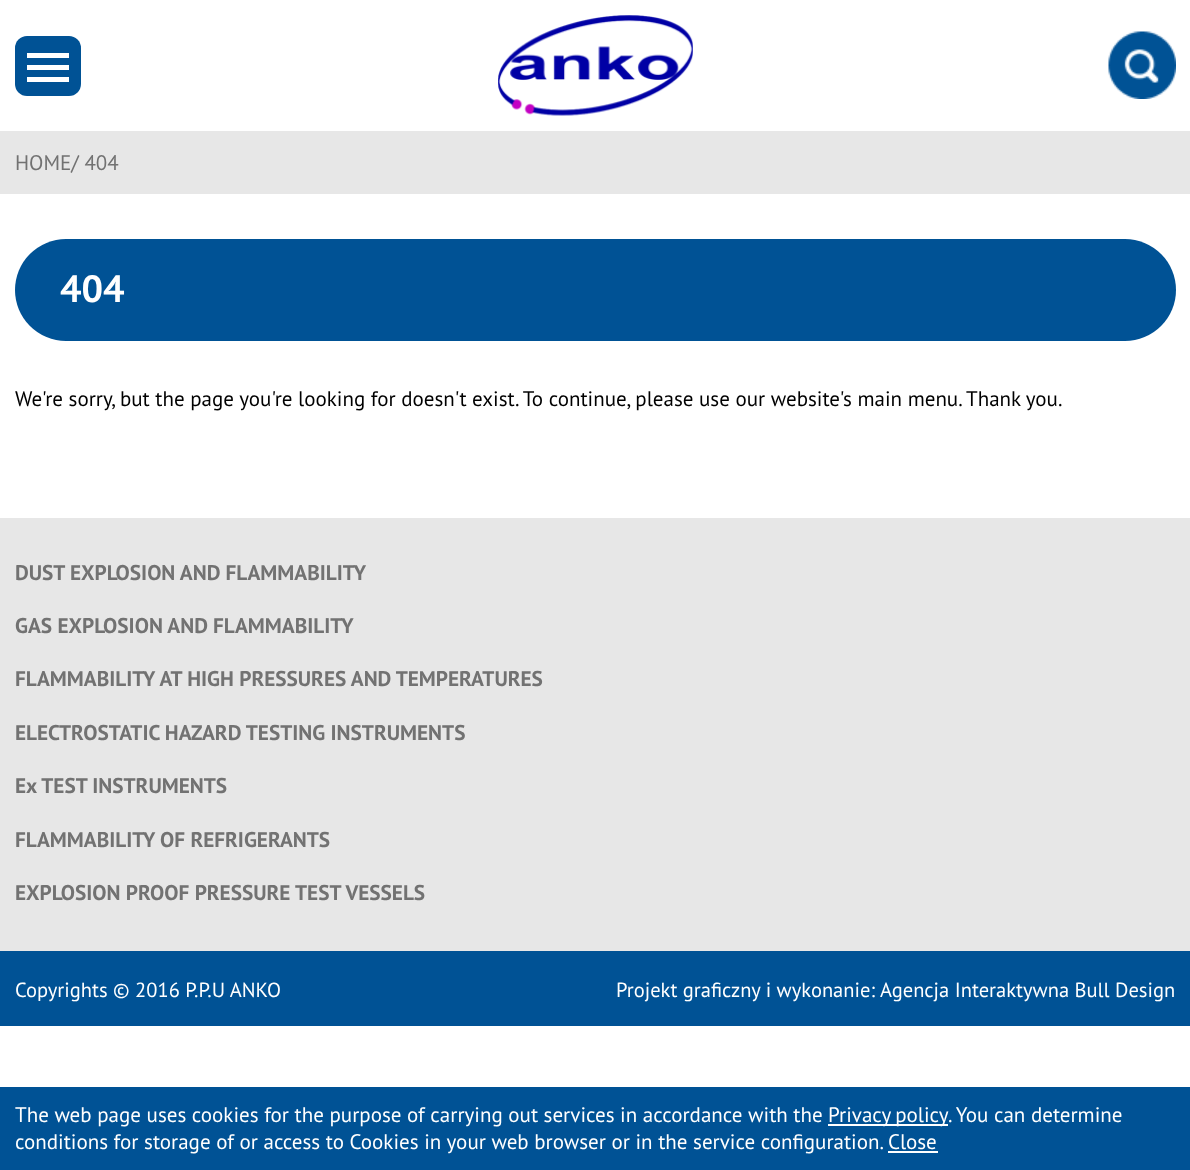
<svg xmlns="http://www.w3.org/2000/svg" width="1190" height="1170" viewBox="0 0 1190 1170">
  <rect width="100%" height="100%" fill="rgb(255,255,255)"/>
  <rect x="15" y="36" width="66" height="60" rx="12" fill="rgb(0,82,149)"/>
  <rect x="27" y="53" width="42" height="5" fill="rgb(255,255,255)"/>
  <rect x="27" y="65" width="42" height="5" fill="rgb(255,255,255)"/>
  <rect x="27" y="77" width="42" height="5" fill="rgb(255,255,255)"/>
  <image x="498" y="15" width="195" height="101" href="pic1.png"/>
  <image x="1108" y="31" width="68" height="68" href="pic2.png"/>
  <rect x="0" y="131" width="1190" height="63" fill="rgb(231,231,231)"/>
  <text x="15" y="170" font-family="PT Sans" font-size="21" fill="rgb(114,114,114)">HOME/ 404</text>
  <rect x="15" y="239" width="1161" height="102" rx="51" fill="rgb(0,82,149)"/>
  <text x="60" y="302" font-family="PT Sans" font-size="38" font-weight="bold" fill="rgb(255,255,255)">404</text>
  <text x="15" y="406" font-family="PT Sans" font-size="21" fill="rgb(0,0,0)">We're sorry, but the page you're looking for doesn't exist. To continue, please use our website's main menu. Thank you.</text>
  <rect x="0" y="518" width="1190" height="433" fill="rgb(231,231,231)"/>
  <g font-family="PT Sans" font-size="21.25" font-weight="bold" fill="rgb(114,114,114)">
    <text x="15" y="580">DUST EXPLOSION AND FLAMMABILITY</text>
    <text x="15" y="633">GAS EXPLOSION AND FLAMMABILITY</text>
    <text x="15" y="686">FLAMMABILITY AT HIGH PRESSURES AND TEMPERATURES</text>
    <text x="15" y="740">ELECTROSTATIC HAZARD TESTING INSTRUMENTS</text>
    <text x="15" y="793">Ex TEST INSTRUMENTS</text>
    <text x="15" y="847">FLAMMABILITY OF REFRIGERANTS</text>
    <text x="15" y="900">EXPLOSION PROOF PRESSURE TEST VESSELS</text>
  </g>
  <rect x="0" y="951" width="1190" height="75" fill="rgb(0,82,149)"/>
  <g font-family="PT Sans" font-size="20.5" fill="rgb(255,255,255)">
    <text x="15" y="997">Copyrights © 2016 P.P.U ANKO</text>
    <text x="616" y="997">Projekt graficzny i wykonanie:</text>
    <text x="880" y="997">Agencja Interaktywna Bull Design</text>
  </g>
  <rect x="0" y="1087" width="1190" height="83" fill="rgb(0,82,149)"/>
  <text x="15" y="1122" font-family="PT Sans" font-size="21" fill="rgb(255,255,255)">The web page uses cookies for the purpose of carrying out services in accordance with the</text>
  <rect x="828" y="1124" width="120" height="2" fill="rgb(255,255,255)"/>
  <g font-family="PT Sans" font-size="21" fill="rgb(255,255,255)">
    <text x="828" y="1122" word-spacing="-1">Privacy policy</text>
    <text x="948" y="1122">. You can determine</text>
    <text x="15" y="1149">conditions for storage of or access to Cookies in your web browser or in the service configuration. Close</text>
  </g>
  <rect x="888" y="1151" width="50" height="2" fill="rgb(255,255,255)"/>
</svg>
